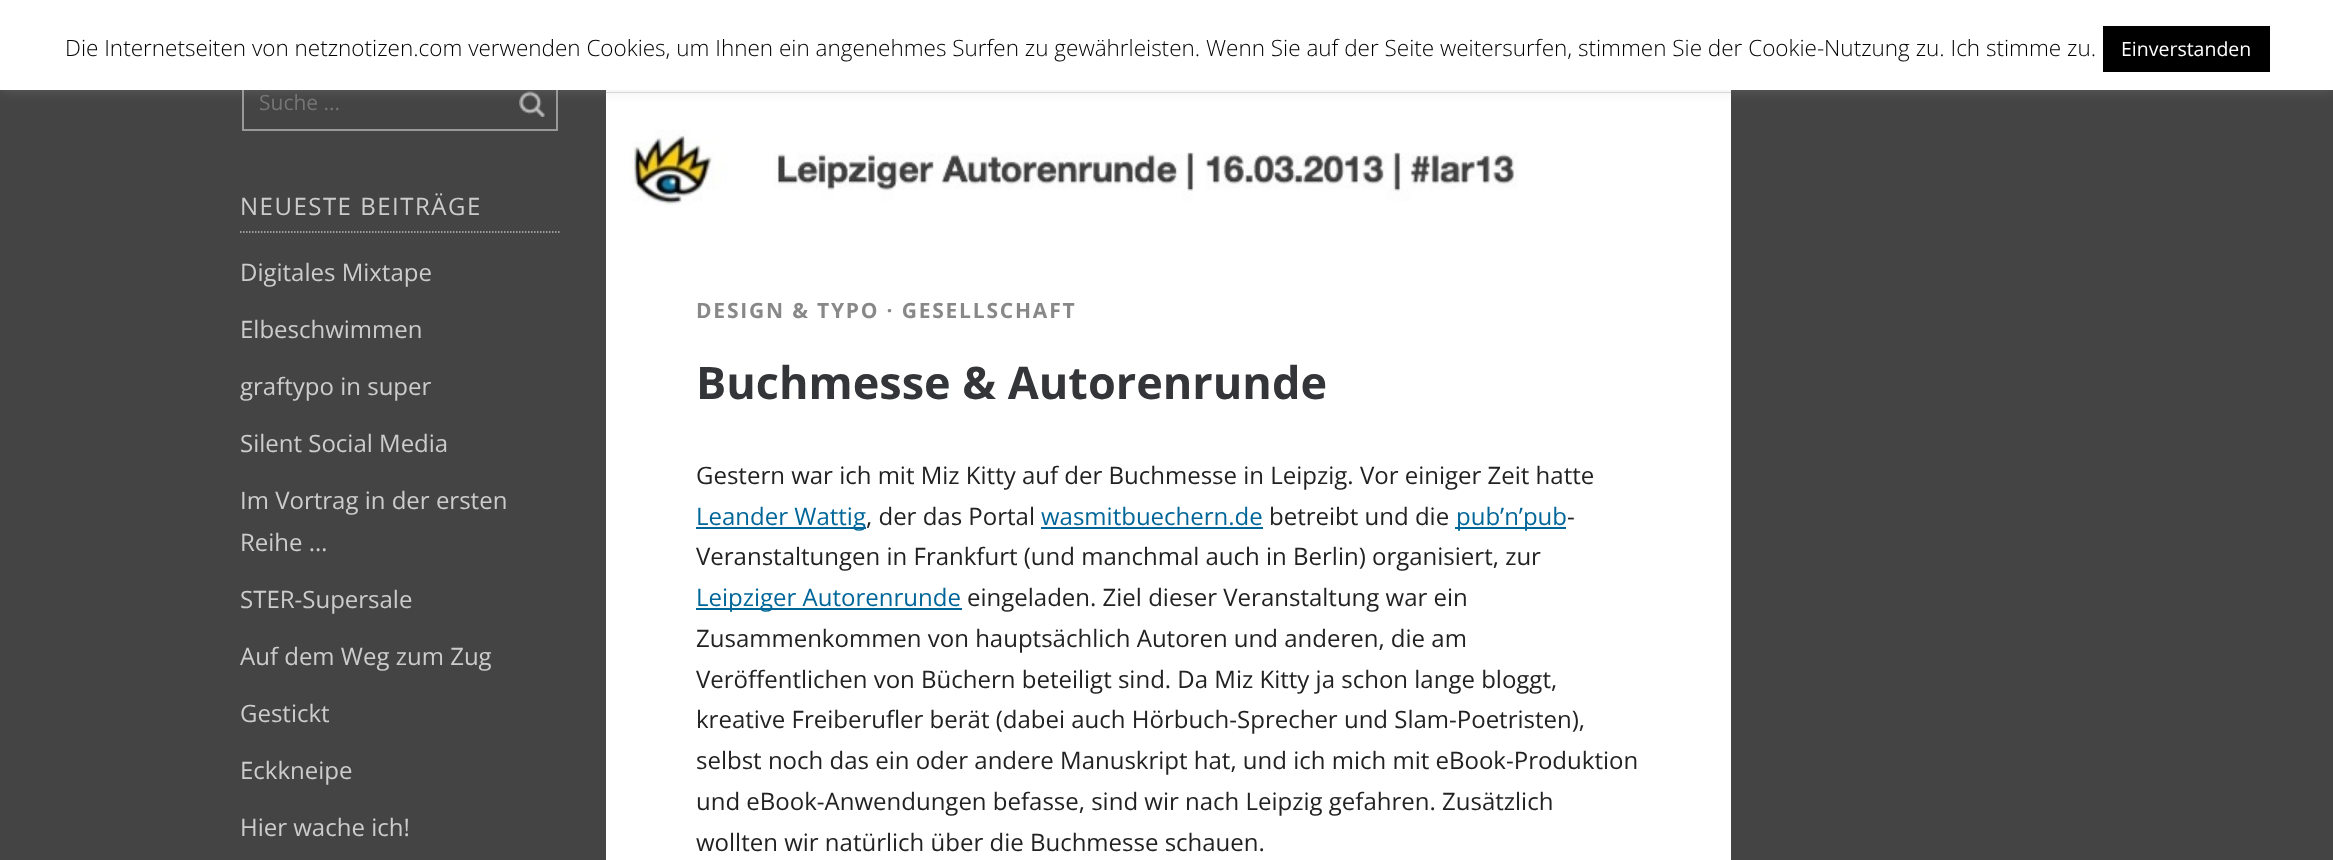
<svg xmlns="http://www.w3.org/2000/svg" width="2333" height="860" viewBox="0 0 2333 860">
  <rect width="100%" height="100%" fill="rgb(68,68,68)"/>
  <rect x="243" y="73" width="314" height="57" fill="none" stroke="rgb(153,153,153)" stroke-width="2"/>
  <image x="519" y="91" width="26" height="26" href="pic1.png"/>
  <rect x="606" y="90" width="1125" height="2" fill="rgb(255,255,255)"/>
  <rect x="606" y="92" width="1125" height="1" fill="rgb(220,220,220)"/>
  <rect x="606" y="93" width="1125" height="767" fill="rgb(255,255,255)"/>
  <rect x="0" y="-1" width="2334" height="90" fill="rgba(172,171,171,0.3)" filter="blur(7.5px)"/>
  <rect x="0" y="0" width="2333" height="90" fill="rgb(255,255,255)"/>
  <text x="65" y="56" font-family="Open Sans" font-size="22.5" font-weight="300" fill="rgb(0,0,0)">Die Internetseiten von netznotizen.com verwenden Cookies, um Ihnen ein angenehmes Surfen zu gewährleisten. Wenn Sie auf der Seite weitersurfen, stimmen Sie der Cookie-Nutzung zu. Ich stimme zu.</text>
  <rect x="2103" y="26" width="167" height="46" fill="rgb(0,0,0)"/>
  <text x="2121" y="56" font-family="Open Sans" font-size="19.5" fill="rgb(255,255,255)">Einverstanden</text>
  <text x="259" y="110" font-family="Open Sans" font-size="21" fill="rgb(117,117,117)">Suche ...</text>
  <path d="M240 232H559.5" fill="none" stroke="rgb(187,187,187)" stroke-width="1.5" stroke-dasharray="1.5 1.5"/>
  <text x="240" y="215" font-family="Open Sans" font-size="24" letter-spacing="1.5" fill="rgb(204,204,204)">NEUESTE BEITRÄGE</text>
  <g font-family="Open Sans" font-size="24" fill="rgb(204,204,204)">
    <text x="240" y="281">Digitales Mixtape</text>
    <text x="240" y="338">Elbeschwimmen</text>
    <text x="240" y="395">graftypo in super</text>
    <text x="240" y="452">Silent Social Media</text>
    <text>
      <tspan x="240" y="509">Im Vortrag in der ersten</tspan>
      <tspan x="240" y="551">Reihe …</tspan>
    </text>
    <text x="240" y="608">STER-Supersale</text>
    <text x="240" y="665">Auf dem Weg zum Zug</text>
    <text x="240" y="722">Gestickt</text>
    <text x="240" y="779">Eckkneipe</text>
    <text x="240" y="836">Hier wache ich!</text>
  </g>
  <image x="630" y="130" width="888" height="76" href="pic2.png"/>
  <text x="696" y="318" font-family="Open Sans" font-size="21" font-weight="bold" letter-spacing="1.8" fill="rgb(136,136,136)">DESIGN &amp; TYPO · GESELLSCHAFT</text>
  <text x="696" y="399" font-family="Open Sans" font-size="45" font-weight="bold" fill="rgb(51,53,56)">Buchmesse &amp; Autorenrunde</text>
  <text x="696" y="484" font-family="Open Sans" font-size="24" fill="rgb(34,34,34)">Gestern war ich mit Miz Kitty auf der Buchmesse in Leipzig. Vor einiger Zeit hatte</text>
  <rect x="696" y="527" width="170" height="2" fill="rgb(0,102,153)"/>
  <text x="696" y="525" font-family="Open Sans" font-size="24" fill="rgb(0,102,153)">Leander Wattig</text>
  <text x="866" y="525" font-family="Open Sans" font-size="24" fill="rgb(34,34,34)">, der das Portal</text>
  <text x="1041" y="525" font-family="Open Sans" font-size="24" fill="rgb(0,102,153)">wasmitbuechern.de</text>
  <rect x="1041" y="527" width="222" height="2" fill="rgb(0,102,153)"/>
  <text x="1269" y="525" font-family="Open Sans" font-size="24" fill="rgb(34,34,34)">betreibt und die</text>
  <rect x="1455" y="527" width="111" height="2" fill="rgb(0,102,153)"/>
  <text x="1456" y="525" font-family="Open Sans" font-size="24" fill="rgb(0,102,153)">pub’n’pub</text>
  <g font-family="Open Sans" font-size="24" fill="rgb(34,34,34)">
    <text x="1567" y="525">-</text>
    <text x="696" y="565">Veranstaltungen in Frankfurt (und manchmal auch in Berlin) organisiert, zur</text>
  </g>
  <rect x="696" y="608" width="266" height="2" fill="rgb(0,102,153)"/>
  <text x="696" y="606" font-family="Open Sans" font-size="24" fill="rgb(0,102,153)">Leipziger Autorenrunde</text>
  <g font-family="Open Sans" font-size="24" fill="rgb(34,34,34)">
    <text x="967" y="606">eingeladen. Ziel dieser Veranstaltung war ein</text>
    <text>
      <tspan x="696" y="647">Zusammenkommen von hauptsächlich Autoren und anderen, die am</tspan>
      <tspan x="696" y="688">Veröffentlichen von Büchern beteiligt sind. Da Miz Kitty ja schon lange bloggt,</tspan>
      <tspan x="696" y="728">kreative Freiberufler berät (dabei auch Hörbuch-Sprecher und Slam-Poetristen),</tspan>
      <tspan x="696" y="769">selbst noch das ein oder andere Manuskript hat, und ich mich mit eBook-Produktion</tspan>
      <tspan x="696" y="810">und eBook-Anwendungen befasse, sind wir nach Leipzig gefahren. Zusätzlich</tspan>
      <tspan x="696" y="851">wollten wir natürlich über die Buchmesse schauen.</tspan>
    </text>
  </g>
</svg>
